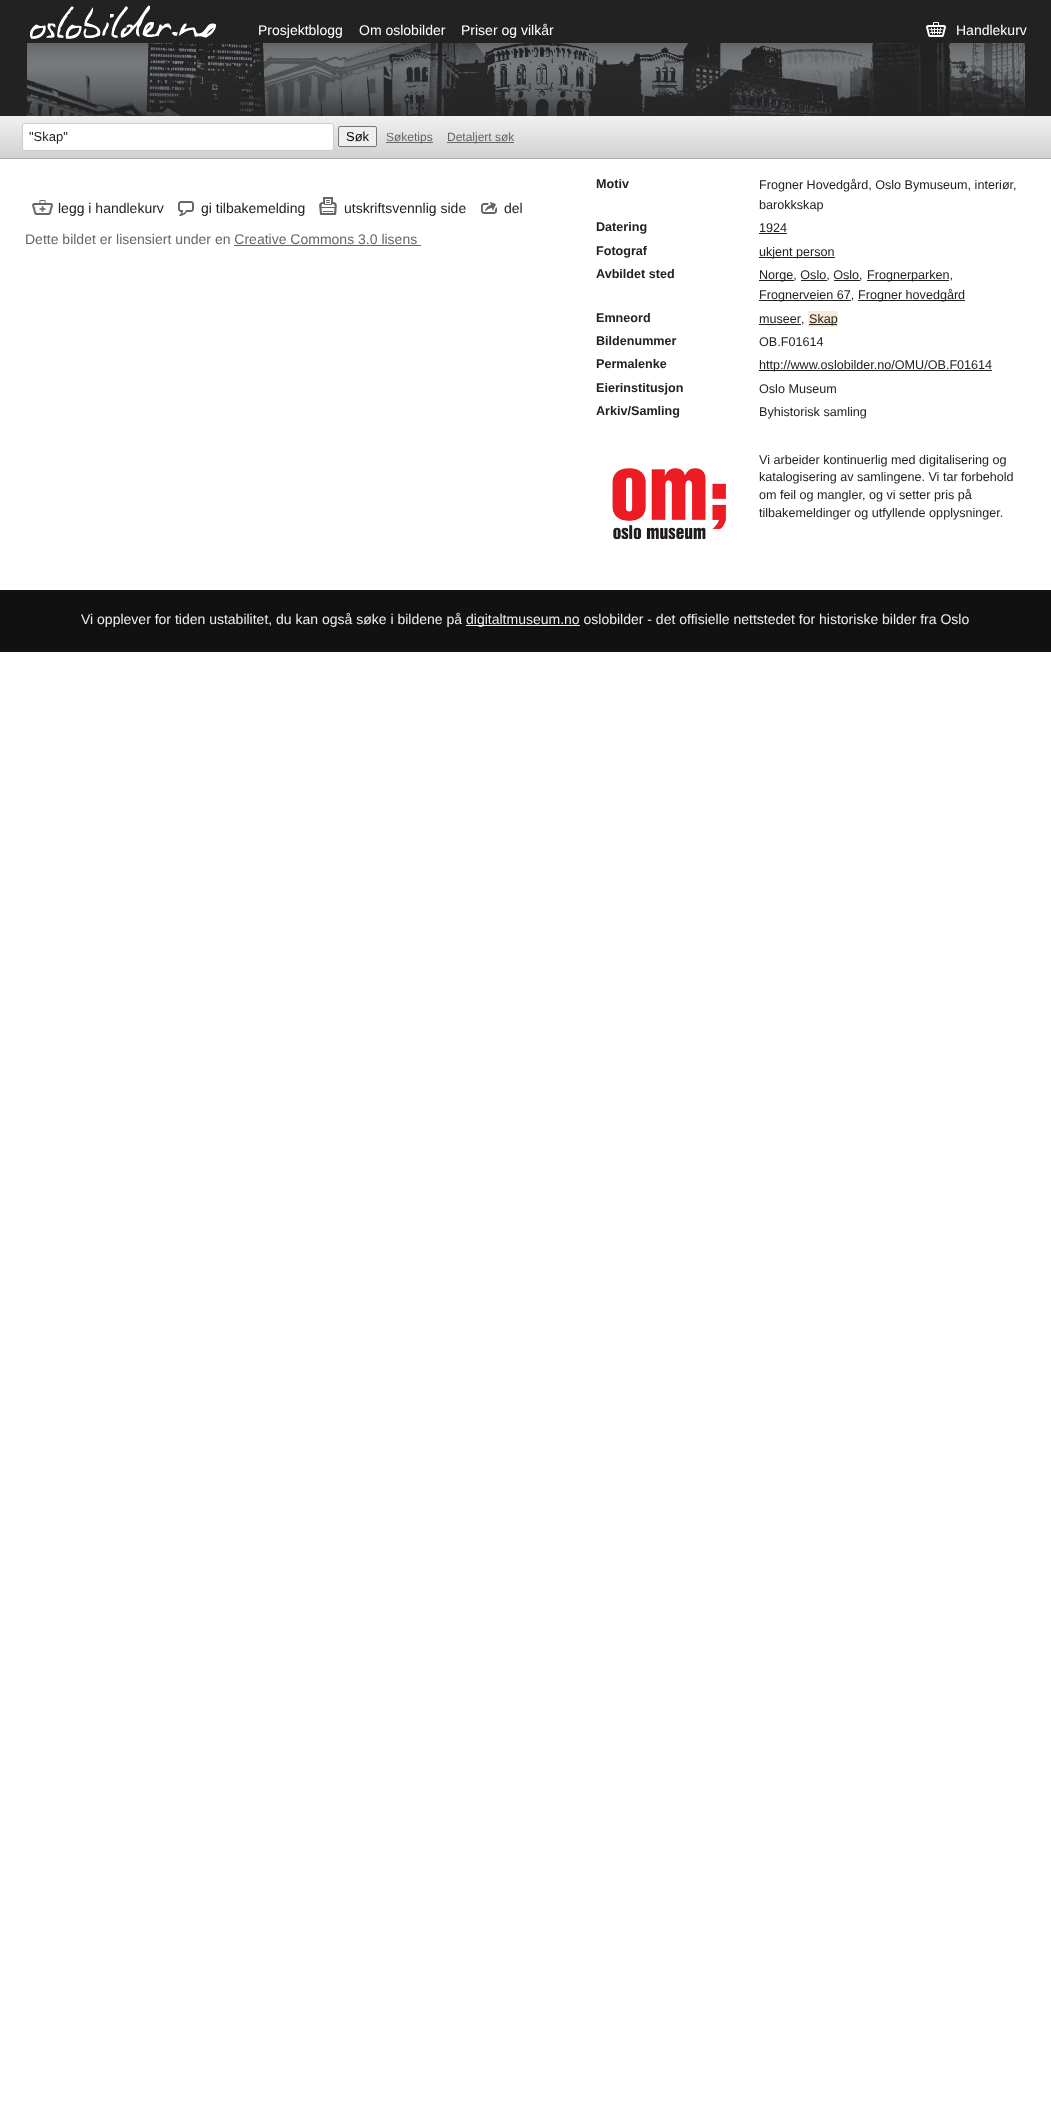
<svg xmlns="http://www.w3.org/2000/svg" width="1051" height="2107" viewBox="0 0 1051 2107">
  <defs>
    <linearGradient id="g1" gradientUnits="userSpaceOnUse" x1="526" y1="116" x2="526" y2="158"><stop offset="0" stop-color="rgb(241,241,241)"/><stop offset="1" stop-color="rgb(209,209,209)"/></linearGradient>
  </defs>
  <rect width="100%" height="100%" fill="rgb(255,255,255)"/>
  <rect x="0" y="0" width="1051" height="116" fill="rgb(34,34,34)"/>
  <image x="27" y="43" width="998" height="73" href="pic1.png"/>
  <image x="30" y="5" width="187" height="34" href="pic2.png"/>
  <g font-family="Liberation Sans" font-size="14" fill="rgb(255,255,255)">
    <text x="258" y="35">Prosjektblogg</text>
    <text x="359" y="35">Om oslobilder</text>
    <text x="461" y="35">Priser og vilkår</text>
  </g>
  <image x="926" y="22" width="20" height="15" href="pic3.png"/>
  <text x="956" y="35" font-family="Liberation Sans" font-size="14" fill="rgb(255,255,255)">Handlekurv</text>
  <rect x="0" y="116" width="1051" height="42" fill="url(#g1)"/>
  <rect x="0" y="158" width="1051" height="1" fill="rgb(170,170,170)"/>
  <rect x="22.5" y="123.5" width="311" height="27" rx="2.5" fill="rgb(255,255,255)" stroke="rgb(204,204,204)"/>
  <text x="29" y="141" font-family="Liberation Sans" font-size="13" fill="rgb(34,34,34)">"Skap"</text>
  <rect x="338.5" y="126.5" width="38" height="20" rx="1.5" fill="rgb(239,239,239)" stroke="rgb(118,118,118)"/>
  <text x="346" y="141" font-family="Liberation Sans" font-size="13" fill="rgb(0,0,0)">Søk</text>
  <rect x="386" y="142" width="47" height="1" fill="rgb(102,102,102)"/>
  <text x="386" y="141" font-family="Liberation Sans" font-size="12" fill="rgb(102,102,102)">Søketips</text>
  <rect x="447" y="142" width="67" height="1" fill="rgb(102,102,102)"/>
  <text x="447" y="141" font-family="Liberation Sans" font-size="12" fill="rgb(102,102,102)">Detaljert søk</text>
  <image x="32" y="200" width="21" height="15" href="pic4.png"/>
  <text x="58" y="213" font-family="Liberation Sans" font-size="14" fill="rgb(34,34,34)">legg i handlekurv</text>
  <image x="178" y="201" width="16" height="15" href="pic5.png"/>
  <text x="201" y="213" font-family="Liberation Sans" font-size="14" fill="rgb(34,34,34)">gi tilbakemelding</text>
  <image x="319" y="197" width="18" height="18" href="pic6.png"/>
  <text x="344" y="213" font-family="Liberation Sans" font-size="14" fill="rgb(34,34,34)">utskriftsvennlig side</text>
  <image x="481" y="202" width="16" height="12" href="pic7.png"/>
  <text x="504" y="213" font-family="Liberation Sans" font-size="14" fill="rgb(34,34,34)">del</text>
  <text x="25" y="244" font-family="Liberation Sans" font-size="14" fill="rgb(102,102,102)">Dette bildet er lisensiert under en Creative Commons 3.0 lisens</text>
  <rect x="234" y="245" width="187" height="1" fill="rgb(102,102,102)"/>
  <text x="596" y="188" font-family="Liberation Sans" font-size="12.6" font-weight="bold" fill="rgb(34,34,34)">Motiv</text>
  <g font-family="Liberation Sans" font-size="12.6" fill="rgb(34,34,34)">
    <text>
      <tspan x="759" y="189">Frogner Hovedgård, Oslo Bymuseum, interiør,</tspan>
      <tspan x="759" y="209">barokkskap</tspan>
    </text>
  </g>
  <text x="596" y="231" font-family="Liberation Sans" font-size="12.6" font-weight="bold" fill="rgb(34,34,34)">Datering</text>
  <text x="759" y="232" font-family="Liberation Sans" font-size="12.6" fill="rgb(34,34,34)">1924</text>
  <rect x="759" y="233" width="28" height="1" fill="rgb(34,34,34)"/>
  <text x="596" y="255" font-family="Liberation Sans" font-size="12.6" font-weight="bold" fill="rgb(34,34,34)">Fotograf</text>
  <rect x="759" y="257" width="76" height="1" fill="rgb(34,34,34)"/>
  <text x="759" y="256" font-family="Liberation Sans" font-size="12.6" fill="rgb(34,34,34)">ukjent person</text>
  <text x="596" y="278" font-family="Liberation Sans" font-size="12.6" font-weight="bold" fill="rgb(34,34,34)">Avbildet sted</text>
  <rect x="759" y="280" width="35" height="1" fill="rgb(34,34,34)"/>
  <text x="759" y="279" font-family="Liberation Sans" font-size="12.6" fill="rgb(34,34,34)">Norge, Oslo, Oslo,</text>
  <rect x="867" y="280" width="82" height="1" fill="rgb(34,34,34)"/>
  <text x="867" y="279" font-family="Liberation Sans" font-size="12.6" fill="rgb(34,34,34)">Frognerparken,</text>
  <rect x="801" y="280" width="26" height="1" fill="rgb(34,34,34)"/>
  <rect x="834" y="280" width="26" height="1" fill="rgb(34,34,34)"/>
  <rect x="759" y="300" width="92" height="1" fill="rgb(34,34,34)"/>
  <text x="759" y="299" font-family="Liberation Sans" font-size="12.6" fill="rgb(34,34,34)">Frognerveien 67,</text>
  <rect x="858" y="300" width="107" height="1" fill="rgb(34,34,34)"/>
  <text x="858" y="299" font-family="Liberation Sans" font-size="12.6" fill="rgb(34,34,34)">Frogner hovedgård</text>
  <text x="596" y="322" font-family="Liberation Sans" font-size="12.6" font-weight="bold" fill="rgb(34,34,34)">Emneord</text>
  <text x="759" y="323" font-family="Liberation Sans" font-size="12.6" fill="rgb(34,34,34)">museer</text>
  <rect x="759" y="324" width="42" height="1" fill="rgb(34,34,34)"/>
  <text x="801" y="323" font-family="Liberation Sans" font-size="12.6" fill="rgb(34,34,34)">,</text>
  <rect x="808" y="311" width="30" height="16" fill="rgb(250,235,215)"/>
  <rect x="809" y="324" width="28" height="1" fill="rgb(34,34,34)"/>
  <text x="809" y="323" font-family="Liberation Sans" font-size="12.6" fill="rgb(34,34,34)">Skap</text>
  <text x="596" y="345" font-family="Liberation Sans" font-size="12.6" font-weight="bold" fill="rgb(34,34,34)">Bildenummer</text>
  <text x="759" y="346" font-family="Liberation Sans" font-size="12.6" fill="rgb(34,34,34)">OB.F01614</text>
  <text x="596" y="368" font-family="Liberation Sans" font-size="12.6" font-weight="bold" fill="rgb(34,34,34)">Permalenke</text>
  <rect x="759" y="370" width="233" height="1" fill="rgb(34,34,34)"/>
  <text x="759" y="369" font-family="Liberation Sans" font-size="12.6" fill="rgb(34,34,34)">http://www.oslobilder.no/OMU/OB.F01614</text>
  <text x="596" y="392" font-family="Liberation Sans" font-size="12.6" font-weight="bold" fill="rgb(34,34,34)">Eierinstitusjon</text>
  <text x="759" y="393" font-family="Liberation Sans" font-size="12.6" fill="rgb(34,34,34)">Oslo Museum</text>
  <text x="596" y="415" font-family="Liberation Sans" font-size="12.6" font-weight="bold" fill="rgb(34,34,34)">Arkiv/Samling</text>
  <text x="759" y="416" font-family="Liberation Sans" font-size="12.6" fill="rgb(34,34,34)">Byhistorisk samling</text>
  <image x="612" y="468" width="115" height="72" href="pic8.png"/>
  <g font-family="Liberation Sans" font-size="12.6" fill="rgb(34,34,34)">
    <text>
      <tspan x="759" y="464">Vi arbeider kontinuerlig med digitalisering og</tspan>
      <tspan x="759" y="481">katalogisering av samlingene. Vi tar forbehold</tspan>
      <tspan x="759" y="499">om feil og mangler, og vi setter pris på</tspan>
      <tspan x="759" y="517">tilbakemeldinger og utfyllende opplysninger.</tspan>
    </text>
  </g>
  <rect x="0" y="590" width="1051" height="62" fill="rgb(17,17,17)"/>
  <text x="81" y="624" font-family="Liberation Sans" font-size="14" fill="rgb(238,238,238)">Vi opplever for tiden ustabilitet, du kan også søke i bildene på</text>
  <rect x="466" y="625" width="114" height="1" fill="rgb(238,238,238)"/>
  <text x="466" y="624" font-family="Liberation Sans" font-size="14" fill="rgb(238,238,238)">digitaltmuseum.no oslobilder - det offisielle nettstedet for historiske bilder fra Oslo</text>
</svg>
